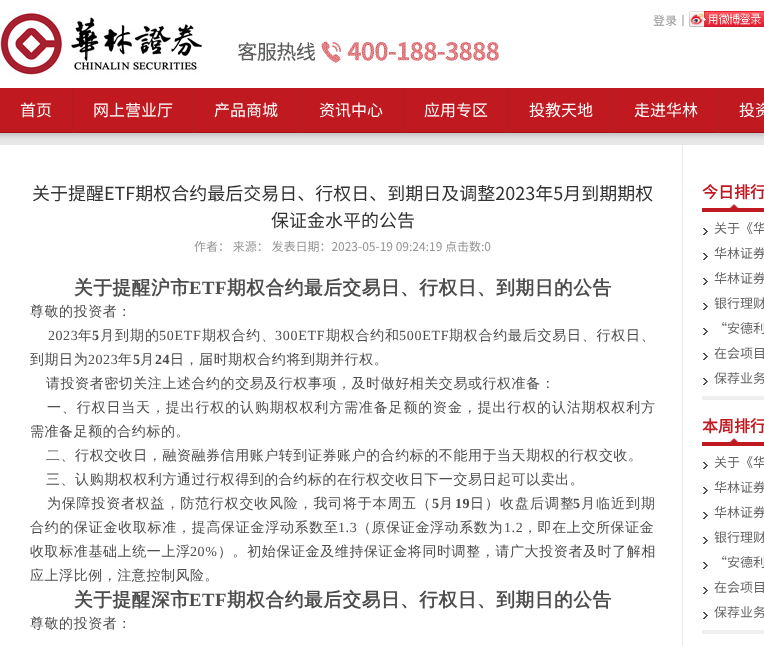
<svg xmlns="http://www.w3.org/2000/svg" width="764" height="646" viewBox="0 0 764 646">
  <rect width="100%" height="100%" fill="rgb(230,230,230)"/>
  <rect x="0" y="0" width="764" height="88" fill="rgb(255,255,255)"/>
  <image x="0" y="12" width="202" height="64" href="pic1.png"/>
  <image x="238" y="41" width="261" height="22" href="pic2.png"/>
  <text x="653" y="25" font-family="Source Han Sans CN" font-size="12" fill="rgb(150,150,150)">登录丨</text>
  <image x="689" y="11" width="75" height="16" href="pic3.png"/>
  <image x="0" y="88" width="764" height="52" href="pic4.png"/>
  <rect x="72" y="88" width="1" height="45" fill="rgb(170,32,37)"/>
  <text x="20" y="116" font-family="Source Han Sans CN" font-size="16" fill="rgb(255,255,255)">首页</text>
  <rect x="193" y="88" width="1" height="45" fill="rgb(170,32,37)"/>
  <text x="93" y="116" font-family="Source Han Sans CN" font-size="16" fill="rgb(255,255,255)">网上营业厅</text>
  <rect x="298" y="88" width="1" height="45" fill="rgb(170,32,37)"/>
  <text x="214" y="116" font-family="Source Han Sans CN" font-size="16" fill="rgb(255,255,255)">产品商城</text>
  <rect x="403" y="88" width="1" height="45" fill="rgb(170,32,37)"/>
  <text x="319" y="116" font-family="Source Han Sans CN" font-size="16" fill="rgb(255,255,255)">资讯中心</text>
  <rect x="508" y="88" width="1" height="45" fill="rgb(170,32,37)"/>
  <text x="424" y="116" font-family="Source Han Sans CN" font-size="16" fill="rgb(255,255,255)">应用专区</text>
  <rect x="613" y="88" width="1" height="45" fill="rgb(170,32,37)"/>
  <text x="529" y="116" font-family="Source Han Sans CN" font-size="16" fill="rgb(255,255,255)">投教天地</text>
  <rect x="718" y="88" width="1" height="45" fill="rgb(170,32,37)"/>
  <g font-family="Source Han Sans CN" font-size="16" fill="rgb(255,255,255)">
    <text x="634" y="116">走进华林</text>
    <text x="739" y="116">投资</text>
  </g>
  <rect x="0" y="145" width="764" height="501" fill="rgb(255,255,255)"/>
  <rect x="682" y="145" width="1" height="501" fill="rgb(235,235,235)"/>
  <g font-family="Source Han Sans CN" font-size="18" fill="rgb(50,50,50)">
    <text x="32" y="200">关于提醒ETF期权合约最后交易日、行权日、到期日及调整2023年5月到期期权</text>
    <text x="271" y="227">保证金水平的公告</text>
  </g>
  <text x="194" y="251" font-family="Source Han Sans CN" font-size="12" fill="rgb(150,150,150)">作者： 来源： 发表日期：2023-05-19 09:24:19 点击数:0</text>
  <text x="74" y="294" font-family="WenQuanYi Zen Hei" font-size="18.7" font-weight="bold" letter-spacing="0.55" fill="rgb(77,77,77)">关于提醒沪市</text>
  <text x="189" y="294" font-family="Liberation Serif" font-size="18.7" font-weight="bold" letter-spacing="0.55" fill="rgb(77,77,77)">ETF</text>
  <text x="227" y="294" font-family="WenQuanYi Zen Hei" font-size="18.7" font-weight="bold" letter-spacing="0.55" fill="rgb(77,77,77)">期权合约最后交易日、行权日、到期日的公告</text>
  <text x="30" y="316" font-family="WenQuanYi Zen Hei" font-size="14" font-weight="500" letter-spacing="0.55" fill="rgb(77,77,77)">尊敬的投资者：</text>
  <text x="48" y="340" font-family="Liberation Serif" font-size="14" letter-spacing="0.55" fill="rgb(77,77,77)">2023</text>
  <text x="78" y="340" font-family="WenQuanYi Zen Hei" font-size="14" font-weight="500" letter-spacing="0.55" fill="rgb(77,77,77)">年</text>
  <text x="92" y="340" font-family="Liberation Serif" font-size="14" font-weight="bold" letter-spacing="0.55" fill="rgb(77,77,77)">5</text>
  <text x="100" y="340" font-family="WenQuanYi Zen Hei" font-size="14" font-weight="500" letter-spacing="1" fill="rgb(77,77,77)">月到期的</text>
  <text x="159" y="340" font-family="Liberation Serif" font-size="14" letter-spacing="0.75" fill="rgb(77,77,77)">50ETF</text>
  <text x="202" y="340" font-family="WenQuanYi Zen Hei" font-size="14" font-weight="500" letter-spacing="0.75" fill="rgb(77,77,77)">期权合约、</text>
  <text x="275" y="340" font-family="Liberation Serif" font-size="14" letter-spacing="0.75" fill="rgb(77,77,77)">300ETF</text>
  <text x="326" y="340" font-family="WenQuanYi Zen Hei" font-size="14" font-weight="500" letter-spacing="0.75" fill="rgb(77,77,77)">期权合约和</text>
  <text x="399" y="340" font-family="Liberation Serif" font-size="14" letter-spacing="0.75" fill="rgb(77,77,77)">500ETF</text>
  <text x="449" y="340" font-family="WenQuanYi Zen Hei" font-size="14" font-weight="500" letter-spacing="0.75" fill="rgb(77,77,77)">期权合约最后交易日、行权日、</text>
  <text x="30" y="364" font-family="WenQuanYi Zen Hei" font-size="14" font-weight="500" letter-spacing="0.55" fill="rgb(77,77,77)">到期日为</text>
  <text x="88" y="364" font-family="Liberation Serif" font-size="14" letter-spacing="0.55" fill="rgb(77,77,77)">2023</text>
  <text x="118" y="364" font-family="WenQuanYi Zen Hei" font-size="14" font-weight="500" letter-spacing="0.55" fill="rgb(77,77,77)">年</text>
  <text x="133" y="364" font-family="Liberation Serif" font-size="14" font-weight="bold" letter-spacing="0.55" fill="rgb(77,77,77)">5</text>
  <text x="140" y="364" font-family="WenQuanYi Zen Hei" font-size="14" font-weight="500" letter-spacing="0.55" fill="rgb(77,77,77)">月</text>
  <text x="155" y="364" font-family="Liberation Serif" font-size="14" font-weight="bold" letter-spacing="0.55" fill="rgb(77,77,77)">24</text>
  <g font-family="WenQuanYi Zen Hei" font-size="14" font-weight="500" letter-spacing="0.55" fill="rgb(77,77,77)">
    <text x="170" y="364">日，届时期权合约将到期并行权。</text>
    <text x="46" y="388">请投资者密切关注上述合约的交易及行权事项，及时做好相关交易或行权准备：</text>
  </g>
  <text x="47" y="412" font-family="WenQuanYi Zen Hei" font-size="14" font-weight="500" letter-spacing="0.85" fill="rgb(77,77,77)">一、行权日当天，提出行权的认购期权权利方需准备足额的资金，提出行权的认沽期权权利方</text>
  <g font-family="WenQuanYi Zen Hei" font-size="14" font-weight="500" letter-spacing="0.55" fill="rgb(77,77,77)">
    <text x="30" y="436">需准备足额的合约标的。</text>
    <text>
      <tspan x="46" y="460">二、行权交收日，融资融券信用账户转到证券账户的合约标的不能用于当天期权的行权交收。</tspan>
      <tspan x="46" y="484">三、认购期权权利方通过行权得到的合约标的在行权交收日下一交易日起可以卖出。</tspan>
    </text>
  </g>
  <text x="47" y="508" font-family="WenQuanYi Zen Hei" font-size="14" font-weight="500" letter-spacing="0.8" fill="rgb(77,77,77)">为保障投资者权益，防范行权交收风险，我司将于本周</text>
  <text x="402" y="508" font-family="WenQuanYi Zen Hei" font-size="14" font-weight="500" letter-spacing="0.55" fill="rgb(77,77,77)">五（</text>
  <text x="432" y="508" font-family="Liberation Serif" font-size="14" font-weight="bold" letter-spacing="0.55" fill="rgb(77,77,77)">5</text>
  <text x="439" y="508" font-family="WenQuanYi Zen Hei" font-size="14" font-weight="500" letter-spacing="0.55" fill="rgb(77,77,77)">月</text>
  <text x="455" y="508" font-family="Liberation Serif" font-size="14" font-weight="bold" letter-spacing="0.55" fill="rgb(77,77,77)">19</text>
  <text x="470" y="508" font-family="WenQuanYi Zen Hei" font-size="14" font-weight="500" letter-spacing="1" fill="rgb(77,77,77)">日）收盘后调整</text>
  <text x="573" y="508" font-family="Liberation Serif" font-size="14" font-weight="bold" letter-spacing="0.55" fill="rgb(77,77,77)">5</text>
  <text x="581" y="508" font-family="WenQuanYi Zen Hei" font-size="14" font-weight="500" letter-spacing="1" fill="rgb(77,77,77)">月临近到期</text>
  <text x="30" y="532" font-family="WenQuanYi Zen Hei" font-size="14" font-weight="500" letter-spacing="0.7" fill="rgb(77,77,77)">合约的保证金收取标准，提高保证金浮动系数至</text>
  <text x="338" y="532" font-family="Liberation Serif" font-size="14" letter-spacing="0.6" fill="rgb(77,77,77)">1.3</text>
  <text x="357" y="532" font-family="WenQuanYi Zen Hei" font-size="14" font-weight="500" letter-spacing="0.6" fill="rgb(77,77,77)">（原保证金浮动系数为</text>
  <text x="504" y="532" font-family="Liberation Serif" font-size="14" letter-spacing="0.6" fill="rgb(77,77,77)">1.2</text>
  <g font-family="WenQuanYi Zen Hei" font-size="14" font-weight="500" letter-spacing="0.6" fill="rgb(77,77,77)">
    <text x="523" y="532">，即在上交所保证金</text>
    <text x="30" y="556">收取标准基础上统一上浮</text>
  </g>
  <text x="190" y="556" font-family="Liberation Serif" font-size="14" letter-spacing="0.6" fill="rgb(77,77,77)">20%</text>
  <text x="218" y="556" font-family="WenQuanYi Zen Hei" font-size="14" font-weight="500" letter-spacing="0.6" fill="rgb(77,77,77)">）。初始保证金及维持保证金将同时调整，请广大投资者及时了解相</text>
  <text x="30" y="580" font-family="WenQuanYi Zen Hei" font-size="14" font-weight="500" letter-spacing="0.55" fill="rgb(77,77,77)">应上浮比例，注意控制风险。</text>
  <text x="74" y="606" font-family="WenQuanYi Zen Hei" font-size="18.7" font-weight="bold" letter-spacing="0.55" fill="rgb(77,77,77)">关于提醒深市</text>
  <text x="189" y="606" font-family="Liberation Serif" font-size="18.7" font-weight="bold" letter-spacing="0.55" fill="rgb(77,77,77)">ETF</text>
  <text x="227" y="606" font-family="WenQuanYi Zen Hei" font-size="18.7" font-weight="bold" letter-spacing="0.55" fill="rgb(77,77,77)">期权合约最后交易日、行权日、到期日的公告</text>
  <text x="30" y="628" font-family="WenQuanYi Zen Hei" font-size="14" font-weight="500" letter-spacing="0.55" fill="rgb(77,77,77)">尊敬的投资者：</text>
  <rect x="702" y="396" width="62" height="4" fill="rgb(239,239,239)"/>
  <image x="702" y="204" width="62" height="8" href="pic5.png"/>
  <text x="702" y="198" font-family="Source Han Sans CN" font-size="16" font-weight="bold" fill="rgb(193,25,32)">今日排行</text>
  <image x="703" y="228" width="5" height="7" href="pic6.png"/>
  <text x="714" y="233" font-family="Source Han Sans CN" font-size="13" fill="rgb(100,100,100)">关于《华</text>
  <image x="703" y="253" width="5" height="7" href="pic6.png"/>
  <text x="714" y="258" font-family="Source Han Sans CN" font-size="13" fill="rgb(100,100,100)">华林证券</text>
  <image x="703" y="278" width="5" height="7" href="pic6.png"/>
  <text x="714" y="283" font-family="Source Han Sans CN" font-size="13" fill="rgb(100,100,100)">华林证券</text>
  <image x="703" y="303" width="5" height="7" href="pic6.png"/>
  <text x="714" y="308" font-family="Source Han Sans CN" font-size="13" fill="rgb(100,100,100)">银行理财</text>
  <image x="703" y="328" width="5" height="7" href="pic6.png"/>
  <text x="714" y="333" font-family="Source Han Sans CN" font-size="13" fill="rgb(100,100,100)">“安德利</text>
  <image x="703" y="353" width="5" height="7" href="pic6.png"/>
  <text x="714" y="358" font-family="Source Han Sans CN" font-size="13" fill="rgb(100,100,100)">在会项目</text>
  <image x="703" y="378" width="5" height="7" href="pic6.png"/>
  <text x="714" y="383" font-family="Source Han Sans CN" font-size="13" fill="rgb(100,100,100)">保荐业务</text>
  <rect x="702" y="630" width="62" height="4" fill="rgb(239,239,239)"/>
  <image x="702" y="438" width="62" height="8" href="pic5.png"/>
  <text x="702" y="432" font-family="Source Han Sans CN" font-size="16" font-weight="bold" fill="rgb(193,25,32)">本周排行</text>
  <image x="703" y="462" width="5" height="7" href="pic6.png"/>
  <text x="714" y="467" font-family="Source Han Sans CN" font-size="13" fill="rgb(100,100,100)">关于《华</text>
  <image x="703" y="487" width="5" height="7" href="pic6.png"/>
  <text x="714" y="492" font-family="Source Han Sans CN" font-size="13" fill="rgb(100,100,100)">华林证券</text>
  <image x="703" y="512" width="5" height="7" href="pic6.png"/>
  <text x="714" y="517" font-family="Source Han Sans CN" font-size="13" fill="rgb(100,100,100)">华林证券</text>
  <image x="703" y="537" width="5" height="7" href="pic6.png"/>
  <text x="714" y="542" font-family="Source Han Sans CN" font-size="13" fill="rgb(100,100,100)">银行理财</text>
  <image x="703" y="562" width="5" height="7" href="pic6.png"/>
  <text x="714" y="567" font-family="Source Han Sans CN" font-size="13" fill="rgb(100,100,100)">“安德利</text>
  <image x="703" y="587" width="5" height="7" href="pic6.png"/>
  <text x="714" y="592" font-family="Source Han Sans CN" font-size="13" fill="rgb(100,100,100)">在会项目</text>
  <image x="703" y="612" width="5" height="7" href="pic6.png"/>
  <text x="714" y="617" font-family="Source Han Sans CN" font-size="13" fill="rgb(100,100,100)">保荐业务</text>
</svg>
